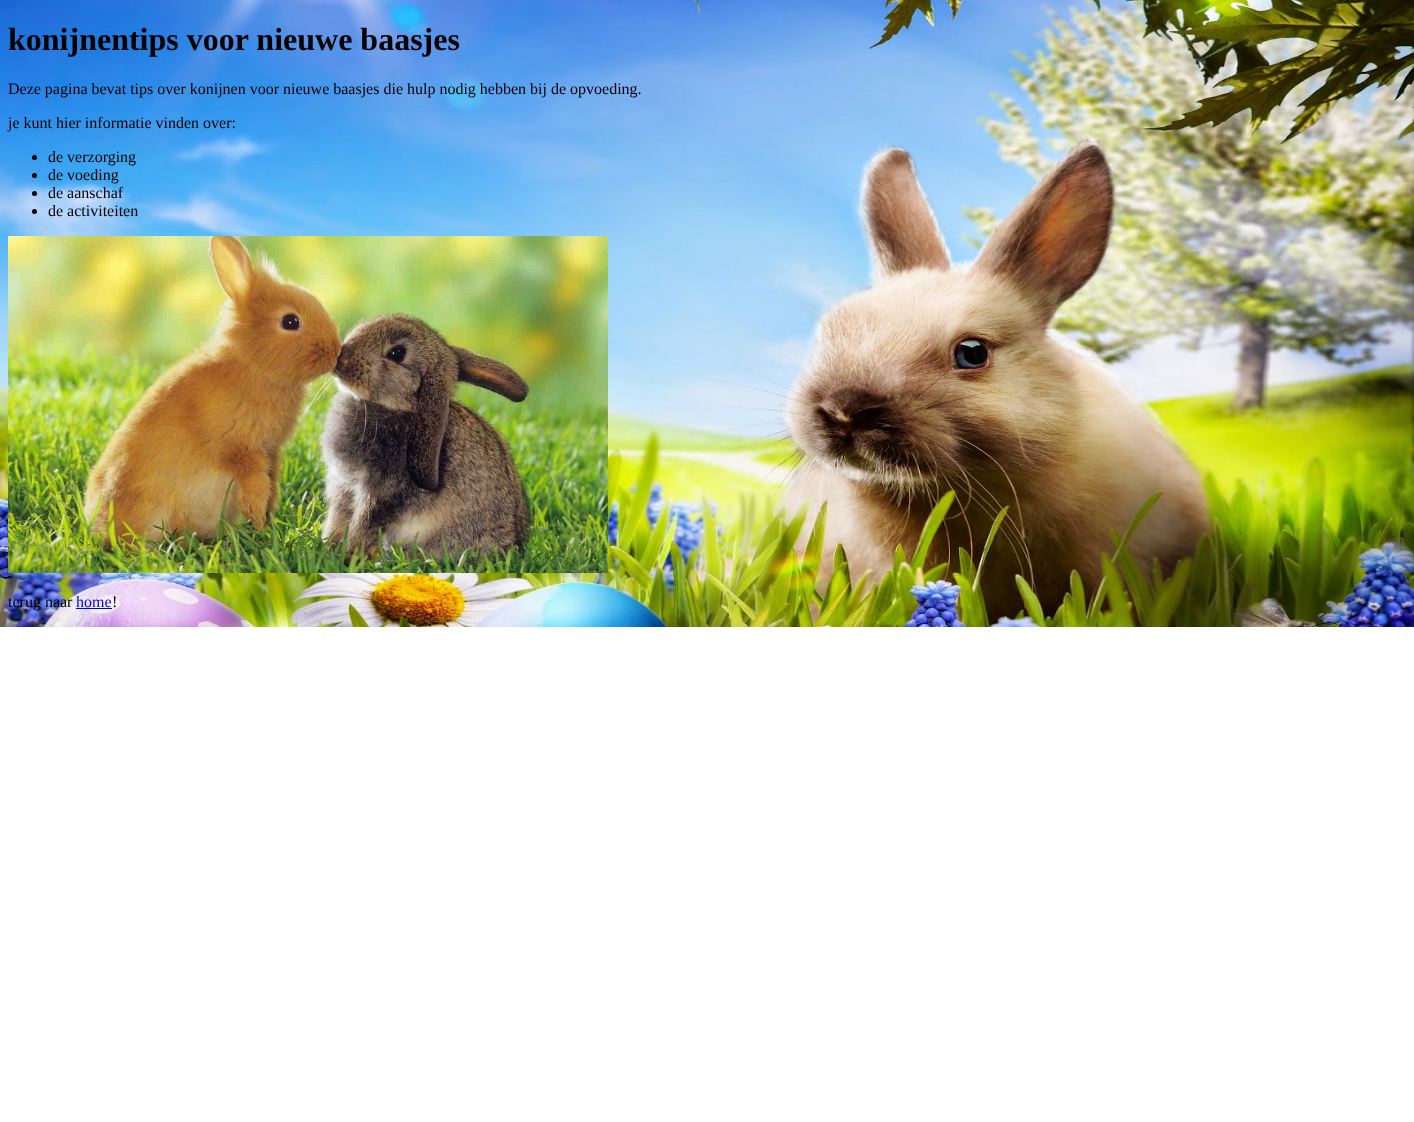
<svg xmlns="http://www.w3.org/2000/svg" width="1414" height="1122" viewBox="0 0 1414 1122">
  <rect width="100%" height="100%" fill="rgb(255,255,255)"/>
  <image x="0" y="0" width="1414" height="627" href="pic1.png"/>
  <text x="8" y="50" font-family="Liberation Serif" font-size="32" font-weight="bold" fill="rgb(0,0,0)">konijnentips voor nieuwe baasjes</text>
  <g font-family="Liberation Serif" font-size="16" fill="rgb(0,0,0)">
    <text x="8" y="94">Deze pagina bevat tips over konijnen voor nieuwe baasjes die hulp nodig hebben bij de opvoeding.</text>
    <text x="8" y="128">je kunt hier informatie vinden over:</text>
  </g>
  <circle cx="34.5" cy="157.5" r="2.5" fill="rgb(0,0,0)"/>
  <text x="48" y="162" font-family="Liberation Serif" font-size="16" fill="rgb(0,0,0)">de verzorging</text>
  <circle cx="34.5" cy="175.5" r="2.5" fill="rgb(0,0,0)"/>
  <text x="48" y="180" font-family="Liberation Serif" font-size="16" fill="rgb(0,0,0)">de voeding</text>
  <circle cx="34.5" cy="193.5" r="2.5" fill="rgb(0,0,0)"/>
  <text x="48" y="198" font-family="Liberation Serif" font-size="16" fill="rgb(0,0,0)">de aanschaf</text>
  <circle cx="34.5" cy="211.5" r="2.5" fill="rgb(0,0,0)"/>
  <text x="48" y="216" font-family="Liberation Serif" font-size="16" fill="rgb(0,0,0)">de activiteiten</text>
  <image x="8" y="236" width="600" height="337" href="pic2.png"/>
  <text x="8" y="607" font-family="Liberation Serif" font-size="16" fill="rgb(0,0,0)">terug naar</text>
  <text x="76" y="607" font-family="Liberation Serif" font-size="16" fill="rgb(0,0,238)">home</text>
  <rect x="76" y="608" width="36" height="1" fill="rgb(0,0,238)"/>
  <text x="112" y="607" font-family="Liberation Serif" font-size="16" fill="rgb(0,0,0)">!</text>
</svg>
